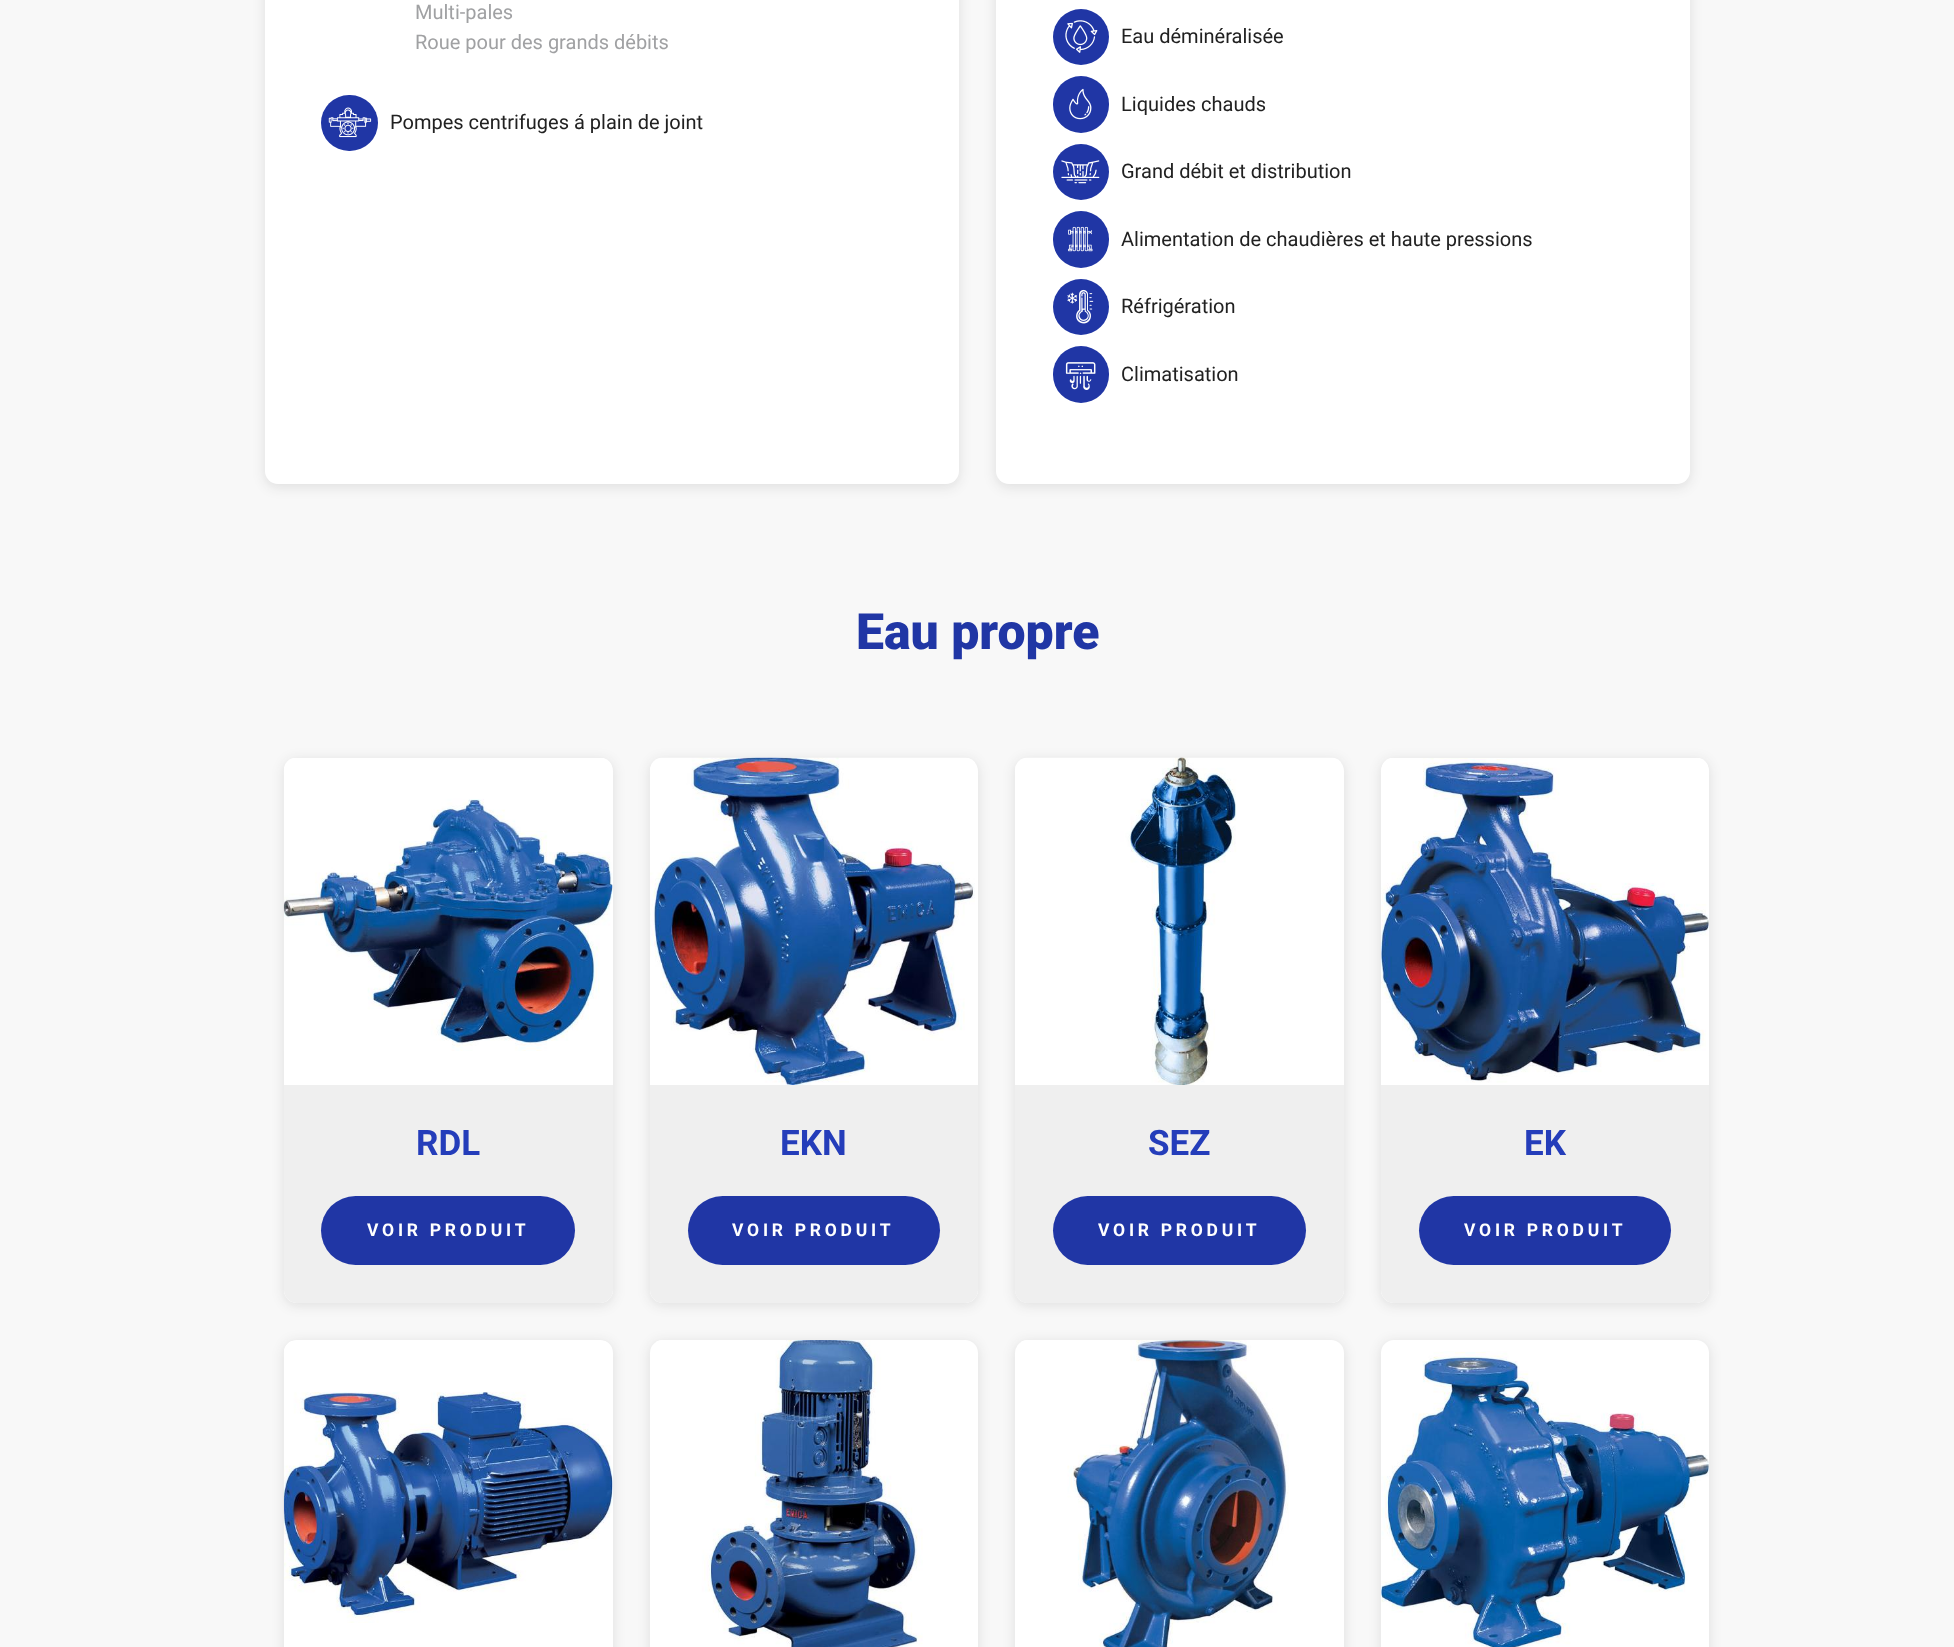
<svg xmlns="http://www.w3.org/2000/svg" width="1954" height="1647" viewBox="0 0 1954 1647">
  <rect width="100%" height="100%" fill="rgb(248,248,248)"/>
  <rect x="264" y="-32" width="696" height="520" rx="14" fill="rgba(33,33,33,0.1)" filter="blur(6px)"/>
  <rect x="265" y="-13" width="694" height="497" rx="13" fill="rgb(255,255,255)"/>
  <g font-family="Roboto" font-size="20" fill="rgb(160,161,163)">
    <text>
      <tspan x="415" y="19">Multi-pales</tspan>
      <tspan x="415" y="49">Roue pour des grands débits</tspan>
    </text>
  </g>
  <rect x="321" y="95" width="57" height="56" rx="28" fill="rgb(32,54,165)"/>
  <image x="328" y="107" width="44" height="31" href="pic1.png"/>
  <text x="390" y="129" font-family="Roboto" font-size="20" fill="rgb(33,33,33)">Pompes centrifuges á plain de joint</text>
  <rect x="995" y="-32" width="696" height="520" rx="14" fill="rgba(33,33,33,0.1)" filter="blur(6px)"/>
  <rect x="996" y="-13" width="694" height="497" rx="13" fill="rgb(255,255,255)"/>
  <circle cx="1081" cy="37" r="28" fill="rgb(32,54,165)"/>
  <image x="1065" y="20" width="33" height="33" href="pic2.png"/>
  <text x="1121" y="43" font-family="Roboto" font-size="20" fill="rgb(33,33,33)">Eau déminéralisée</text>
  <rect x="1053" y="76" width="56" height="57" rx="28" fill="rgb(32,54,165)"/>
  <image x="1069" y="88" width="23" height="32" href="pic3.png"/>
  <text x="1121" y="111" font-family="Roboto" font-size="20" fill="rgb(33,33,33)">Liquides chauds</text>
  <circle cx="1081" cy="172" r="28" fill="rgb(32,54,165)"/>
  <image x="1061" y="160" width="39" height="24" href="pic4.png"/>
  <text x="1121" y="178" font-family="Roboto" font-size="20" fill="rgb(33,33,33)">Grand débit et distribution</text>
  <rect x="1053" y="211" width="56" height="57" rx="28" fill="rgb(32,54,165)"/>
  <image x="1068" y="226" width="25" height="26" href="pic5.png"/>
  <text x="1121" y="246" font-family="Roboto" font-size="20" fill="rgb(33,33,33)">Alimentation de chaudières et haute pressions</text>
  <circle cx="1081" cy="307" r="28" fill="rgb(32,54,165)"/>
  <image x="1067" y="289" width="27" height="35" href="pic6.png"/>
  <text x="1121" y="313" font-family="Roboto" font-size="20" fill="rgb(33,33,33)">Réfrigération</text>
  <rect x="1053" y="346" width="56" height="57" rx="28" fill="rgb(32,54,165)"/>
  <image x="1065" y="362" width="31" height="28" href="pic7.png"/>
  <text x="1121" y="381" font-family="Roboto" font-size="20" fill="rgb(33,33,33)">Climatisation</text>
  <text x="856" y="649" font-family="Roboto" font-size="50" font-weight="900" fill="rgb(32,54,165)">Eau propre</text>
  <rect x="283" y="759" width="331" height="547" rx="14" fill="rgba(33,33,33,0.1)" filter="blur(6px)"/>
  <rect x="284" y="758" width="329" height="545" rx="13" fill="rgb(255,255,255)"/>
  <image x="283" y="758" width="330" height="293" href="pic8.png"/>
  <path d="M284 1085H613V1290C613 1297 607 1303 600 1303H297C290 1303 284 1297 284 1290Z" fill="rgb(239,239,239)"/>
  <text x="416" y="1155" font-family="Roboto" font-size="35" font-weight="bold" fill="rgb(36,61,186)">RDL</text>
  <rect x="321" y="1196" width="254" height="69" rx="34.5" fill="rgb(32,54,165)"/>
  <text x="367" y="1236" font-family="Roboto" font-size="17.5" font-weight="bold" letter-spacing="3.75" fill="rgb(255,255,255)">VOIR PRODUIT</text>
  <rect x="649" y="759" width="330" height="547" rx="14" fill="rgba(33,33,33,0.1)" filter="blur(6px)"/>
  <rect x="650" y="758" width="328" height="545" rx="13" fill="rgb(255,255,255)"/>
  <image x="650" y="757" width="325" height="328" href="pic9.png"/>
  <path d="M650 1085H978V1290C978 1297 972 1303 965 1303H663C656 1303 650 1297 650 1290Z" fill="rgb(239,239,239)"/>
  <text x="780" y="1155" font-family="Roboto" font-size="35" font-weight="bold" fill="rgb(36,61,186)">EKN</text>
  <rect x="688" y="1196" width="252" height="69" rx="34.5" fill="rgb(32,54,165)"/>
  <text x="732" y="1236" font-family="Roboto" font-size="17.5" font-weight="bold" letter-spacing="3.75" fill="rgb(255,255,255)">VOIR PRODUIT</text>
  <rect x="1014" y="759" width="331" height="547" rx="14" fill="rgba(33,33,33,0.1)" filter="blur(6px)"/>
  <rect x="1015" y="758" width="329" height="545" rx="13" fill="rgb(255,255,255)"/>
  <image x="1015" y="757" width="326" height="328" href="pic10.png"/>
  <path d="M1015 1085H1344V1290C1344 1297 1338 1303 1331 1303H1028C1021 1303 1015 1297 1015 1290Z" fill="rgb(239,239,239)"/>
  <text x="1148" y="1155" font-family="Roboto" font-size="35" font-weight="bold" fill="rgb(36,61,186)">SEZ</text>
  <rect x="1053" y="1196" width="253" height="69" rx="34.5" fill="rgb(32,54,165)"/>
  <text x="1098" y="1236" font-family="Roboto" font-size="17.5" font-weight="bold" letter-spacing="3.75" fill="rgb(255,255,255)">VOIR PRODUIT</text>
  <rect x="1380" y="759" width="330" height="547" rx="14" fill="rgba(33,33,33,0.1)" filter="blur(6px)"/>
  <rect x="1381" y="758" width="328" height="545" rx="13" fill="rgb(255,255,255)"/>
  <image x="1381" y="758" width="328" height="325" href="pic11.png"/>
  <path d="M1381 1085H1709V1290C1709 1297 1703 1303 1696 1303H1394C1387 1303 1381 1297 1381 1290Z" fill="rgb(239,239,239)"/>
  <text x="1524" y="1155" font-family="Roboto" font-size="35" font-weight="bold" fill="rgb(36,61,186)">EK</text>
  <rect x="1419" y="1196" width="252" height="69" rx="34.5" fill="rgb(32,54,165)"/>
  <text x="1464" y="1236" font-family="Roboto" font-size="17.5" font-weight="bold" letter-spacing="3.75" fill="rgb(255,255,255)">VOIR PRODUIT</text>
  <rect x="283" y="1341" width="331" height="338" rx="14" fill="rgba(33,33,33,0.1)" filter="blur(6px)"/>
  <rect x="284" y="1340" width="329" height="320" rx="13" fill="rgb(255,255,255)"/>
  <image x="283" y="1341" width="330" height="282" href="pic12.png"/>
  <rect x="649" y="1341" width="330" height="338" rx="14" fill="rgba(33,33,33,0.1)" filter="blur(6px)"/>
  <rect x="650" y="1340" width="328" height="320" rx="13" fill="rgb(255,255,255)"/>
  <image x="656" y="1340" width="267" height="307" href="pic13.png"/>
  <rect x="1014" y="1341" width="331" height="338" rx="14" fill="rgba(33,33,33,0.1)" filter="blur(6px)"/>
  <rect x="1015" y="1340" width="329" height="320" rx="13" fill="rgb(255,255,255)"/>
  <image x="1021" y="1340" width="268" height="307" href="pic14.png"/>
  <rect x="1380" y="1341" width="330" height="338" rx="14" fill="rgba(33,33,33,0.1)" filter="blur(6px)"/>
  <rect x="1381" y="1340" width="328" height="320" rx="13" fill="rgb(255,255,255)"/>
  <image x="1381" y="1351" width="328" height="296" href="pic15.png"/>
</svg>
